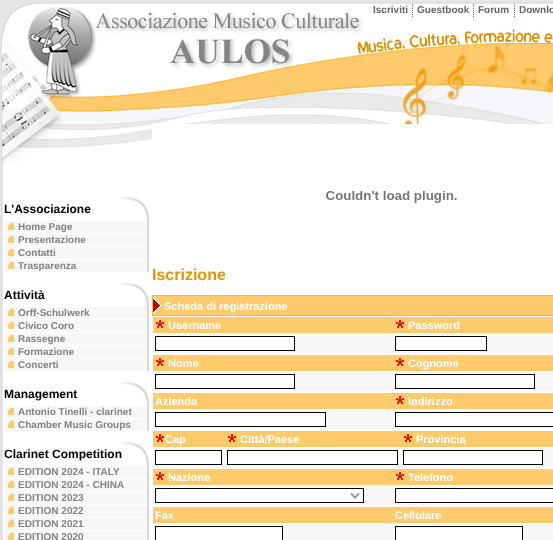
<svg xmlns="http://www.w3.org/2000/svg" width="553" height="540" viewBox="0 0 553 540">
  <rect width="100%" height="100%" fill="rgb(230,230,230)"/>
  <image x="1" y="2" width="552" height="122" href="pic1.png"/>
  <text x="373" y="13" font-family="Liberation Sans" font-size="10" font-weight="bold" fill="rgb(102,102,102)">Iscriviti</text>
  <image x="412" y="4" width="1" height="13" href="pic2.png"/>
  <text x="417" y="13" font-family="Liberation Sans" font-size="10" font-weight="bold" fill="rgb(102,102,102)">Guestbook</text>
  <image x="473" y="4" width="1" height="13" href="pic2.png"/>
  <text x="478" y="13" font-family="Liberation Sans" font-size="10" font-weight="bold" fill="rgb(102,102,102)">Forum</text>
  <image x="514" y="4" width="1" height="13" href="pic2.png"/>
  <text x="519" y="13" font-family="Liberation Sans" font-size="10" font-weight="bold" fill="rgb(102,102,102)">Downlo</text>
  <image x="1" y="124" width="552" height="416" href="pic3.png"/>
  <image x="2" y="124" width="150" height="41" href="pic4.png"/>
  <image x="120" y="197" width="29" height="23" href="pic5.png"/>
  <text x="4" y="213" font-family="Liberation Sans" font-size="12" font-weight="bold" fill="rgb(0,0,0)">L'Associazione</text>
  <rect x="147" y="220" width="2" height="52" fill="rgb(215,215,215)"/>
  <rect x="5" y="221" width="142" height="12" fill="rgb(247,247,247)"/>
  <image x="7" y="222" width="8" height="9" href="pic6.png"/>
  <text x="18" y="230" font-family="Liberation Sans" font-size="10" font-weight="bold" fill="rgb(130,130,130)">Home Page</text>
  <rect x="5" y="234" width="142" height="12" fill="rgb(247,247,247)"/>
  <image x="7" y="235" width="8" height="9" href="pic6.png"/>
  <text x="18" y="243" font-family="Liberation Sans" font-size="10" font-weight="bold" fill="rgb(130,130,130)">Presentazione</text>
  <rect x="5" y="247" width="142" height="12" fill="rgb(247,247,247)"/>
  <image x="7" y="248" width="8" height="9" href="pic6.png"/>
  <text x="18" y="256" font-family="Liberation Sans" font-size="10" font-weight="bold" fill="rgb(130,130,130)">Contatti</text>
  <rect x="5" y="260" width="142" height="12" fill="rgb(247,247,247)"/>
  <image x="7" y="261" width="8" height="9" href="pic6.png"/>
  <text x="18" y="269" font-family="Liberation Sans" font-size="10" font-weight="bold" fill="rgb(130,130,130)">Trasparenza</text>
  <image x="120" y="283" width="29" height="23" href="pic5.png"/>
  <text x="4" y="299" font-family="Liberation Sans" font-size="12" font-weight="bold" fill="rgb(0,0,0)">Attività</text>
  <rect x="147" y="306" width="2" height="65" fill="rgb(215,215,215)"/>
  <rect x="5" y="307" width="142" height="12" fill="rgb(247,247,247)"/>
  <image x="7" y="308" width="8" height="9" href="pic6.png"/>
  <text x="18" y="316" font-family="Liberation Sans" font-size="10" font-weight="bold" fill="rgb(130,130,130)">Orff-Schulwerk</text>
  <rect x="5" y="320" width="142" height="12" fill="rgb(247,247,247)"/>
  <image x="7" y="321" width="8" height="9" href="pic6.png"/>
  <text x="18" y="329" font-family="Liberation Sans" font-size="10" font-weight="bold" fill="rgb(130,130,130)">Civico Coro</text>
  <rect x="5" y="333" width="142" height="12" fill="rgb(247,247,247)"/>
  <image x="7" y="334" width="8" height="9" href="pic6.png"/>
  <text x="18" y="342" font-family="Liberation Sans" font-size="10" font-weight="bold" fill="rgb(130,130,130)">Rassegne</text>
  <rect x="5" y="346" width="142" height="12" fill="rgb(247,247,247)"/>
  <image x="7" y="347" width="8" height="9" href="pic6.png"/>
  <text x="18" y="355" font-family="Liberation Sans" font-size="10" font-weight="bold" fill="rgb(130,130,130)">Formazione</text>
  <rect x="5" y="359" width="142" height="12" fill="rgb(247,247,247)"/>
  <image x="7" y="360" width="8" height="9" href="pic6.png"/>
  <text x="18" y="368" font-family="Liberation Sans" font-size="10" font-weight="bold" fill="rgb(130,130,130)">Concerti</text>
  <image x="120" y="382" width="29" height="23" href="pic5.png"/>
  <text x="4" y="398" font-family="Liberation Sans" font-size="12" font-weight="bold" fill="rgb(0,0,0)">Management</text>
  <rect x="147" y="405" width="2" height="26" fill="rgb(215,215,215)"/>
  <rect x="5" y="406" width="142" height="12" fill="rgb(247,247,247)"/>
  <image x="7" y="407" width="8" height="9" href="pic6.png"/>
  <text x="18" y="415" font-family="Liberation Sans" font-size="10" font-weight="bold" fill="rgb(130,130,130)">Antonio Tinelli - clarinet</text>
  <rect x="5" y="419" width="142" height="12" fill="rgb(247,247,247)"/>
  <image x="7" y="420" width="8" height="9" href="pic6.png"/>
  <text x="18" y="428" font-family="Liberation Sans" font-size="10" font-weight="bold" fill="rgb(130,130,130)">Chamber Music Groups</text>
  <image x="120" y="442" width="29" height="23" href="pic5.png"/>
  <text x="4" y="458" font-family="Liberation Sans" font-size="12" font-weight="bold" fill="rgb(0,0,0)">Clarinet Competition</text>
  <rect x="147" y="465" width="2" height="75" fill="rgb(215,215,215)"/>
  <rect x="5" y="466" width="142" height="12" fill="rgb(247,247,247)"/>
  <image x="7" y="467" width="8" height="9" href="pic6.png"/>
  <text x="18" y="475" font-family="Liberation Sans" font-size="10" font-weight="bold" fill="rgb(130,130,130)">EDITION 2024 - ITALY</text>
  <rect x="5" y="479" width="142" height="12" fill="rgb(247,247,247)"/>
  <image x="7" y="480" width="8" height="9" href="pic6.png"/>
  <text x="18" y="488" font-family="Liberation Sans" font-size="10" font-weight="bold" fill="rgb(130,130,130)">EDITION 2024 - CHINA</text>
  <rect x="5" y="492" width="142" height="12" fill="rgb(247,247,247)"/>
  <image x="7" y="493" width="8" height="9" href="pic6.png"/>
  <text x="18" y="501" font-family="Liberation Sans" font-size="10" font-weight="bold" fill="rgb(130,130,130)">EDITION 2023</text>
  <rect x="5" y="505" width="142" height="12" fill="rgb(247,247,247)"/>
  <image x="7" y="506" width="8" height="9" href="pic6.png"/>
  <text x="18" y="514" font-family="Liberation Sans" font-size="10" font-weight="bold" fill="rgb(130,130,130)">EDITION 2022</text>
  <rect x="5" y="518" width="142" height="12" fill="rgb(247,247,247)"/>
  <image x="7" y="519" width="8" height="9" href="pic6.png"/>
  <text x="18" y="527" font-family="Liberation Sans" font-size="10" font-weight="bold" fill="rgb(130,130,130)">EDITION 2021</text>
  <rect x="5" y="531" width="142" height="9" fill="rgb(247,247,247)"/>
  <image x="7" y="532" width="8" height="8" href="pic7.png"/>
  <text x="18" y="540" font-family="Liberation Sans" font-size="10" font-weight="bold" fill="rgb(130,130,130)">EDITION 2020</text>
  <image x="326" y="191" width="131" height="12" href="pic8.png"/>
  <text x="152" y="280" font-family="Liberation Sans" font-size="16" font-weight="bold" fill="rgb(230,149,0)">Iscrizione</text>
  <rect x="152.5" y="295.5" width="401" height="20" fill="none" stroke="rgb(255,181,44)"/>
  <rect x="153" y="296" width="400" height="19" fill="rgb(255,202,108)"/>
  <image x="153" y="297" width="9" height="17" href="pic9.png"/>
  <text x="164" y="310" font-family="Liberation Sans" font-size="11" font-weight="bold" fill="rgb(255,255,255)">Scheda di registrazione</text>
  <rect x="153" y="317" width="400" height="16" fill="rgb(255,202,108)"/>
  <image x="156" y="320" width="8" height="8" href="pic10.png"/>
  <text x="168" y="329" font-family="Liberation Sans" font-size="11" font-weight="bold" fill="rgb(255,255,255)">Username</text>
  <image x="396" y="320" width="8" height="8" href="pic10.png"/>
  <text x="408" y="329" font-family="Liberation Sans" font-size="11" font-weight="bold" fill="rgb(255,255,255)">Password</text>
  <rect x="153" y="334" width="400" height="19" fill="rgb(247,247,247)"/>
  <rect x="155.5" y="336.5" width="139" height="14" fill="rgb(255,255,255)" stroke="rgb(0,0,0)"/>
  <rect x="395.5" y="336.5" width="91" height="14" fill="rgb(255,255,255)" stroke="rgb(0,0,0)"/>
  <rect x="153" y="355" width="400" height="16" fill="rgb(255,202,108)"/>
  <image x="156" y="358" width="8" height="8" href="pic10.png"/>
  <text x="168" y="367" font-family="Liberation Sans" font-size="11" font-weight="bold" fill="rgb(255,255,255)">Nome</text>
  <image x="396" y="358" width="8" height="8" href="pic10.png"/>
  <text x="408" y="367" font-family="Liberation Sans" font-size="11" font-weight="bold" fill="rgb(255,255,255)">Cognome</text>
  <rect x="153" y="372" width="400" height="19" fill="rgb(247,247,247)"/>
  <rect x="155.5" y="374.5" width="139" height="14" fill="rgb(255,255,255)" stroke="rgb(0,0,0)"/>
  <rect x="395.5" y="374.5" width="139" height="14" fill="rgb(255,255,255)" stroke="rgb(0,0,0)"/>
  <rect x="153" y="393" width="400" height="16" fill="rgb(255,202,108)"/>
  <text x="155" y="405" font-family="Liberation Sans" font-size="11" font-weight="bold" fill="rgb(255,255,255)">Azienda</text>
  <image x="396" y="396" width="8" height="8" href="pic10.png"/>
  <text x="408" y="405" font-family="Liberation Sans" font-size="11" font-weight="bold" fill="rgb(255,255,255)">Indirizzo</text>
  <rect x="153" y="410" width="400" height="19" fill="rgb(247,247,247)"/>
  <rect x="155.5" y="412.5" width="170" height="14" fill="rgb(255,255,255)" stroke="rgb(0,0,0)"/>
  <rect x="395.5" y="412.5" width="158" height="14" fill="rgb(255,255,255)" stroke="rgb(0,0,0)"/>
  <rect x="153" y="431" width="400" height="16" fill="rgb(255,202,108)"/>
  <image x="156" y="434" width="8" height="8" href="pic10.png"/>
  <text x="165" y="443" font-family="Liberation Sans" font-size="11" font-weight="bold" fill="rgb(255,255,255)">Cap</text>
  <image x="228" y="434" width="8" height="8" href="pic10.png"/>
  <text x="240" y="443" font-family="Liberation Sans" font-size="11" font-weight="bold" fill="rgb(255,255,255)">Città/Paese</text>
  <image x="404" y="434" width="8" height="8" href="pic10.png"/>
  <text x="416" y="443" font-family="Liberation Sans" font-size="11" font-weight="bold" fill="rgb(255,255,255)">Provincia</text>
  <rect x="153" y="448" width="400" height="19" fill="rgb(247,247,247)"/>
  <rect x="155.5" y="450.5" width="66" height="14" fill="rgb(255,255,255)" stroke="rgb(0,0,0)"/>
  <rect x="227.5" y="450.5" width="170" height="14" fill="rgb(255,255,255)" stroke="rgb(0,0,0)"/>
  <rect x="403.5" y="450.5" width="139" height="14" fill="rgb(255,255,255)" stroke="rgb(0,0,0)"/>
  <rect x="153" y="469" width="400" height="16" fill="rgb(255,202,108)"/>
  <image x="156" y="472" width="8" height="8" href="pic10.png"/>
  <text x="168" y="481" font-family="Liberation Sans" font-size="11" font-weight="bold" fill="rgb(255,255,255)">Nazione</text>
  <image x="396" y="472" width="8" height="8" href="pic10.png"/>
  <text x="408" y="481" font-family="Liberation Sans" font-size="11" font-weight="bold" fill="rgb(255,255,255)">Telefono</text>
  <rect x="153" y="486" width="400" height="19" fill="rgb(247,247,247)"/>
  <rect x="155.5" y="488.5" width="208" height="14" fill="rgb(255,255,255)" stroke="rgb(0,0,0)"/>
  <path d="M351 493.5L355 497.5L359 493.5" fill="none" stroke="rgb(153,153,153)" stroke-width="2"/>
  <rect x="395.5" y="488.5" width="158" height="14" fill="rgb(255,255,255)" stroke="rgb(0,0,0)"/>
  <rect x="153" y="507" width="400" height="16" fill="rgb(255,202,108)"/>
  <g font-family="Liberation Sans" font-size="11" font-weight="bold" fill="rgb(255,255,255)">
    <text x="155" y="519">Fax</text>
    <text x="395" y="519">Cellulare</text>
  </g>
  <rect x="153" y="524" width="400" height="16" fill="rgb(247,247,247)"/>
  <rect x="155.5" y="526.5" width="127" height="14" fill="rgb(255,255,255)" stroke="rgb(0,0,0)"/>
  <rect x="395.5" y="526.5" width="127" height="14" fill="rgb(255,255,255)" stroke="rgb(0,0,0)"/>
</svg>
